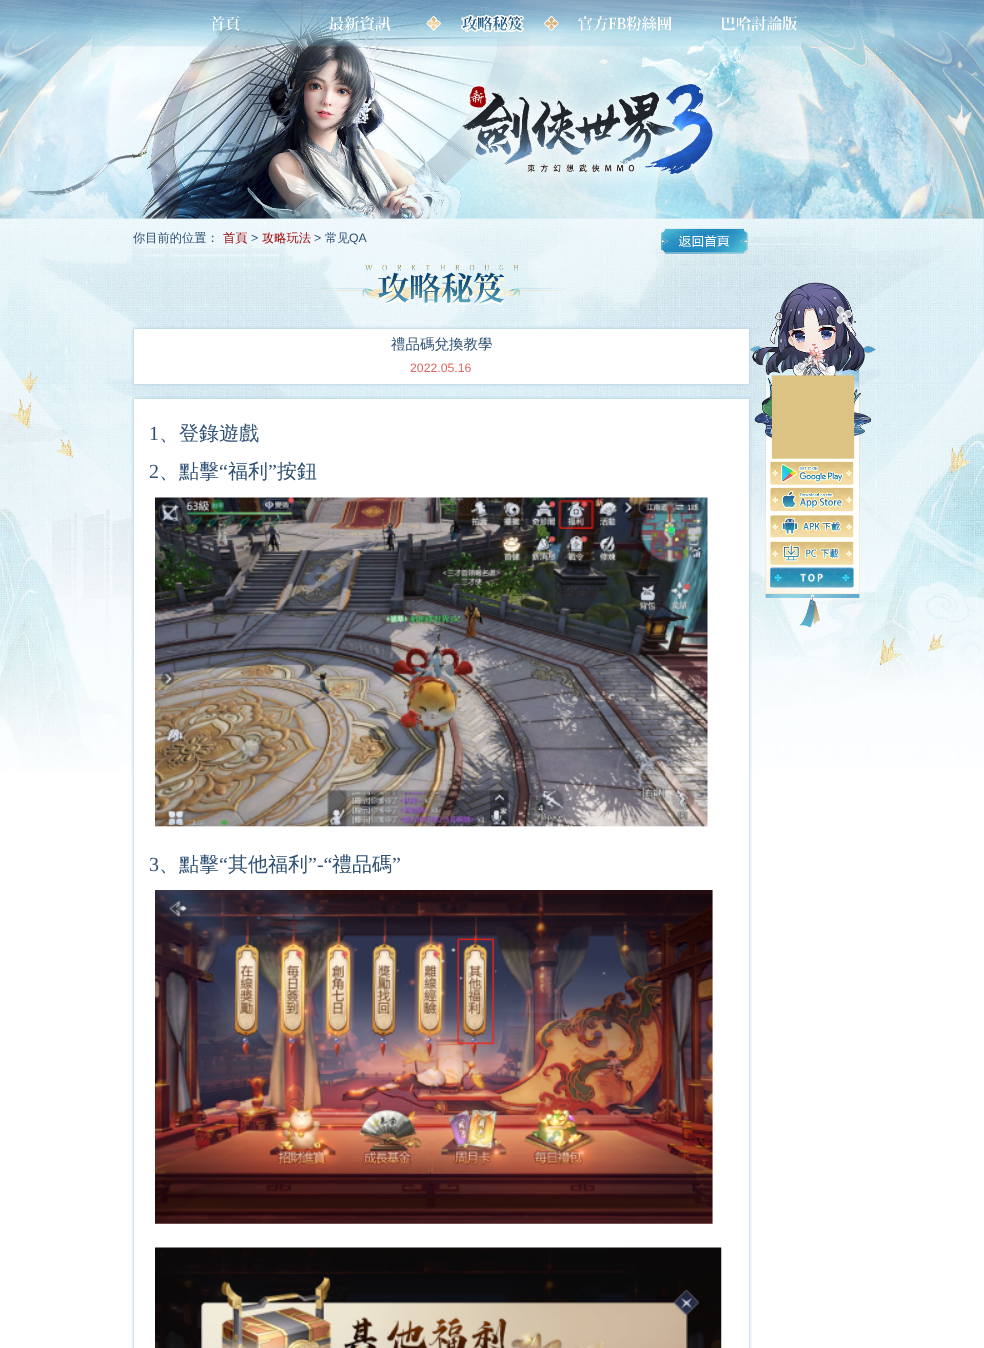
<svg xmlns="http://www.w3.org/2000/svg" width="984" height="1348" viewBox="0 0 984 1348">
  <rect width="100%" height="100%" fill="rgb(255,255,255)"/>
  <image x="0" y="0" width="984" height="771" href="pic7.png"/>
  <image x="0" y="0" width="984" height="47" href="pic1.png"/>
  <image x="210" y="16" width="30" height="15" href="pic2.png"/>
  <image x="329" y="16" width="61" height="15" href="pic3.png"/>
  <image x="426" y="14" width="133" height="19" href="pic4.png"/>
  <image x="578" y="16" width="94" height="15" href="pic5.png"/>
  <image x="722" y="16" width="75" height="15" href="pic6.png"/>
  <text x="133" y="242" font-family="WenQuanYi Zen Hei" font-size="12.25" font-weight="500" fill="rgb(48,81,115)">你目前的位置：</text>
  <text x="223" y="242" font-family="WenQuanYi Zen Hei" font-size="12.25" font-weight="500" fill="rgb(157,0,0)">首頁</text>
  <text x="251" y="242" font-family="Liberation Sans" font-size="12.25" fill="rgb(48,81,115)">&gt;</text>
  <text x="262" y="242" font-family="WenQuanYi Zen Hei" font-size="12.25" font-weight="500" fill="rgb(157,0,0)">攻略玩法</text>
  <text x="314" y="242" font-family="Liberation Sans" font-size="12.25" fill="rgb(48,81,115)">&gt;</text>
  <text x="325" y="242" font-family="WenQuanYi Zen Hei" font-size="12.25" font-weight="500" fill="rgb(48,81,115)">常见</text>
  <text x="349" y="242" font-family="Liberation Sans" font-size="12.25" fill="rgb(48,81,115)">QA</text>
  <image x="661" y="228" width="87" height="26" href="pic8.png"/>
  <image x="313" y="265" width="257" height="41" href="pic9.png"/>
  <rect x="133" y="328" width="617" height="57" fill="rgb(186,212,229)" filter="blur(1.5px)"/>
  <rect x="134" y="329" width="615" height="55" fill="rgb(255,255,255)"/>
  <text x="391" y="349" font-family="WenQuanYi Zen Hei" font-size="14.5" font-weight="500" fill="rgb(48,81,115)">禮品碼兌換教學</text>
  <text x="410" y="372" font-family="Liberation Sans" font-size="12.25" fill="rgb(226,101,101)">2022.05.16</text>
  <rect x="133" y="398" width="617" height="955" fill="rgb(186,212,229)" filter="blur(1.5px)"/>
  <rect x="134" y="399" width="615" height="949" fill="rgb(255,255,255)"/>
  <text x="149" y="440" font-family="Liberation Serif" font-size="20" fill="rgb(48,81,115)">1</text>
  <text x="159" y="440" font-family="WenQuanYi Zen Hei" font-size="20" font-weight="500" fill="rgb(48,81,115)">、登錄遊戲</text>
  <text x="149" y="478" font-family="Liberation Serif" font-size="20" fill="rgb(48,81,115)">2</text>
  <text x="159" y="478" font-family="WenQuanYi Zen Hei" font-size="20" font-weight="500" fill="rgb(48,81,115)">、點擊</text>
  <text x="219" y="478" font-family="Liberation Serif" font-size="20" fill="rgb(48,81,115)">“</text>
  <text x="228" y="478" font-family="WenQuanYi Zen Hei" font-size="20" font-weight="500" fill="rgb(48,81,115)">福利</text>
  <text x="268" y="478" font-family="Liberation Serif" font-size="20" fill="rgb(48,81,115)">”</text>
  <text x="277" y="478" font-family="WenQuanYi Zen Hei" font-size="20" font-weight="500" fill="rgb(48,81,115)">按鈕</text>
  <image x="155" y="497" width="553" height="330" href="pic10.png"/>
  <text x="149" y="871" font-family="Liberation Serif" font-size="20" fill="rgb(48,81,115)">3</text>
  <text x="159" y="871" font-family="WenQuanYi Zen Hei" font-size="20" font-weight="500" fill="rgb(48,81,115)">、點擊</text>
  <text x="219" y="871" font-family="Liberation Serif" font-size="20" fill="rgb(48,81,115)">“</text>
  <text x="228" y="871" font-family="WenQuanYi Zen Hei" font-size="20" font-weight="500" fill="rgb(48,81,115)">其他福利</text>
  <text x="308" y="871" font-family="Liberation Serif" font-size="20" fill="rgb(48,81,115)">”-“</text>
  <text x="332" y="871" font-family="WenQuanYi Zen Hei" font-size="20" font-weight="500" fill="rgb(48,81,115)">禮品碼</text>
  <text x="392" y="871" font-family="Liberation Serif" font-size="20" fill="rgb(48,81,115)">”</text>
  <image x="155" y="890" width="558" height="334" href="pic11.png"/>
  <image x="155" y="1247" width="567" height="101" href="pic12.png"/>
  <image x="748" y="282" width="129" height="346" href="pic13.png"/>
  <image x="770" y="461" width="84" height="24" href="pic14.png"/>
  <image x="770" y="487" width="84" height="25" href="pic15.png"/>
  <image x="770" y="515" width="84" height="23" href="pic16.png"/>
  <image x="770" y="541" width="84" height="24" href="pic17.png"/>
  <image x="770" y="567" width="84" height="21" href="pic18.png"/>
</svg>
